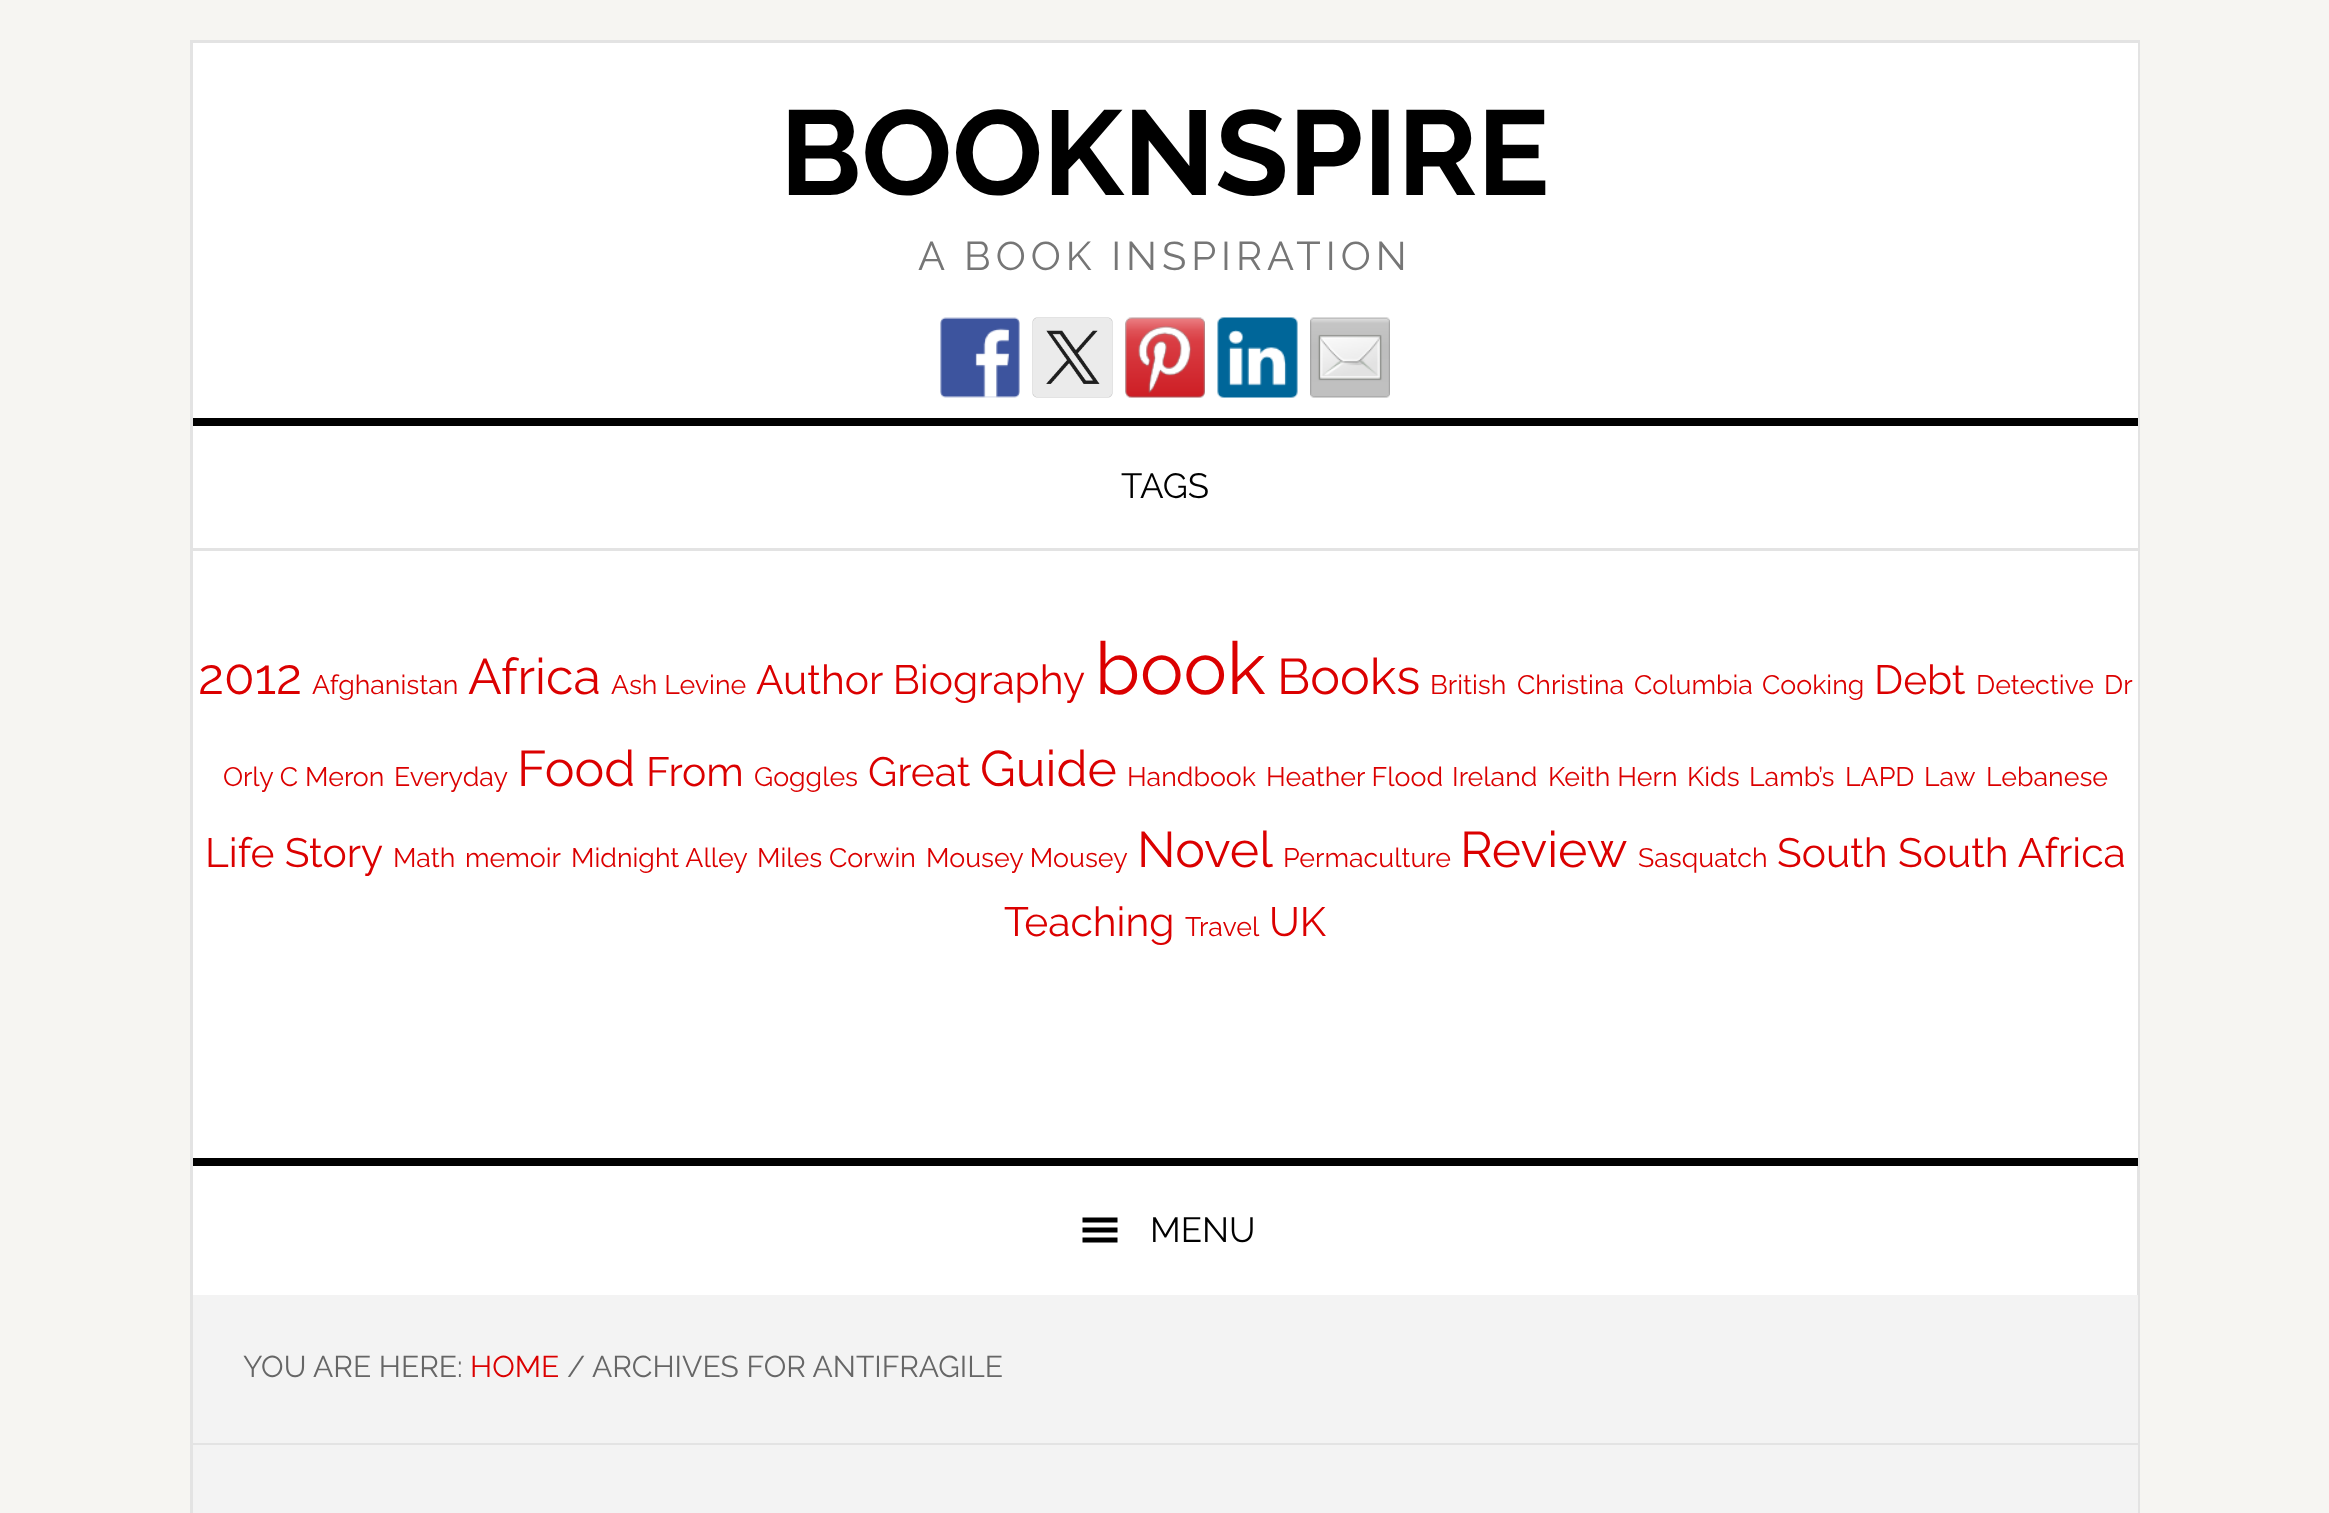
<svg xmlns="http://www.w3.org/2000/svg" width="2329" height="1513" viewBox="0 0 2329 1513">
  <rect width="100%" height="100%" fill="rgb(246,245,242)"/>
  <rect x="193" y="1166" width="1944" height="129" fill="rgb(255,255,255)"/>
  <rect x="191.5" y="41.5" width="1947" height="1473" fill="none" stroke="rgb(227,227,227)" stroke-width="3"/>
  <rect x="193" y="43" width="1945" height="1115" fill="rgb(255,255,255)"/>
  <rect x="193" y="1158" width="1945" height="8" fill="rgb(0,0,0)"/>
  <text x="780" y="195" font-family="Raleway" font-size="120" font-weight="bold" fill="rgb(0,0,0)">BOOKNSPIRE</text>
  <text x="918" y="270" font-family="Raleway" font-size="40" letter-spacing="5" fill="rgb(118,118,118)">A BOOK INSPIRATION</text>
  <image x="940" y="317" width="80" height="81" href="pic1.png"/>
  <image x="1032" y="317" width="81" height="81" href="pic2.png"/>
  <image x="1125" y="317" width="80" height="81" href="pic3.png"/>
  <image x="1217" y="317" width="81" height="81" href="pic4.png"/>
  <image x="1310" y="317" width="80" height="81" href="pic5.png"/>
  <rect x="193" y="418" width="1945" height="8" fill="rgb(0,0,0)"/>
  <rect x="193" y="548" width="1945" height="3" fill="rgb(227,227,227)"/>
  <text x="1121" y="498" font-family="Raleway" font-size="35" fill="rgb(0,0,0)">TAGS</text>
  <text x="198" y="694" font-family="Raleway" font-size="50" fill="rgb(219,0,0)">2012</text>
  <text x="312" y="694" font-family="Raleway" font-size="26.75" fill="rgb(219,0,0)">Afghanistan</text>
  <text x="468" y="694" font-family="Raleway" font-size="50" fill="rgb(219,0,0)">Africa</text>
  <text x="611" y="694" font-family="Raleway" font-size="26.75" fill="rgb(219,0,0)">Ash Levine</text>
  <text x="756" y="694" font-family="Raleway" font-size="40.75" fill="rgb(219,0,0)">Author Biography</text>
  <text x="1095" y="694" font-family="Raleway" font-size="73" fill="rgb(219,0,0)">book</text>
  <text x="1277" y="694" font-family="Raleway" font-size="50" fill="rgb(219,0,0)">Books</text>
  <g font-family="Raleway" font-size="26.75" fill="rgb(219,0,0)">
    <text x="1430" y="694">British</text>
    <text x="1517" y="694">Christina</text>
    <text x="1634" y="694">Columbia</text>
    <text x="1762" y="694">Cooking</text>
  </g>
  <text x="1874" y="694" font-family="Raleway" font-size="40.75" fill="rgb(219,0,0)">Debt</text>
  <g font-family="Raleway" font-size="26.75" fill="rgb(219,0,0)">
    <text x="1976" y="694">Detective</text>
    <text x="2104" y="694">Dr</text>
    <text x="223" y="786">Orly C Meron</text>
    <text x="394" y="786">Everyday</text>
  </g>
  <text x="517" y="786" font-family="Raleway" font-size="50" fill="rgb(219,0,0)">Food</text>
  <text x="646" y="786" font-family="Raleway" font-size="40.75" fill="rgb(219,0,0)">From</text>
  <text x="754" y="786" font-family="Raleway" font-size="26.75" fill="rgb(219,0,0)">Goggles</text>
  <text x="868" y="786" font-family="Raleway" font-size="40.75" fill="rgb(219,0,0)">Great</text>
  <text x="980" y="786" font-family="Raleway" font-size="50" fill="rgb(219,0,0)">Guide</text>
  <g font-family="Raleway" font-size="26.75" fill="rgb(219,0,0)">
    <text x="1127" y="786">Handbook</text>
    <text x="1266" y="786">Heather Flood</text>
    <text x="1452" y="786">Ireland</text>
    <text x="1548" y="786">Keith Hern</text>
    <text x="1687" y="786">Kids</text>
    <text x="1749" y="786">Lamb’s</text>
    <text x="1845" y="786">LAPD</text>
    <text x="1924" y="786">Law</text>
    <text x="1986" y="786">Lebanese</text>
  </g>
  <text x="205" y="867" font-family="Raleway" font-size="40.75" fill="rgb(219,0,0)">Life Story</text>
  <g font-family="Raleway" font-size="26.75" fill="rgb(219,0,0)">
    <text x="393" y="867">Math</text>
    <text x="465" y="867">memoir</text>
    <text x="571" y="867">Midnight Alley</text>
    <text x="757" y="867">Miles Corwin</text>
    <text x="926" y="867">Mousey Mousey</text>
  </g>
  <text x="1137" y="867" font-family="Raleway" font-size="50" fill="rgb(219,0,0)">Novel</text>
  <text x="1283" y="867" font-family="Raleway" font-size="26.75" fill="rgb(219,0,0)">Permaculture</text>
  <text x="1460" y="867" font-family="Raleway" font-size="50" fill="rgb(219,0,0)">Review</text>
  <text x="1638" y="867" font-family="Raleway" font-size="26.75" fill="rgb(219,0,0)">Sasquatch</text>
  <g font-family="Raleway" font-size="40.75" fill="rgb(219,0,0)">
    <text x="1777" y="867">South South Africa</text>
    <text x="1004" y="936">Teaching</text>
  </g>
  <text x="1185" y="936" font-family="Raleway" font-size="26.75" fill="rgb(219,0,0)">Travel</text>
  <text x="1269" y="936" font-family="Raleway" font-size="40.75" fill="rgb(219,0,0)">UK</text>
  <path d="M1082.5 1242.5H1117.5V1237.5H1082.5ZM1082.5 1217.5V1222.5H1117.5V1217.5ZM1082.5 1232.5H1117.5V1227.5H1082.5Z" fill="rgb(0,0,0)"/>
  <text x="1150" y="1242" font-family="Raleway" font-size="35" fill="rgb(0,0,0)">MENU</text>
  <rect x="193" y="1295" width="1945" height="148" fill="rgb(243,243,243)"/>
  <rect x="193" y="1443" width="1945" height="2" fill="rgb(227,227,227)"/>
  <text x="243" y="1377" font-family="Raleway" font-size="30" fill="rgb(102,102,102)">YOU ARE HERE:</text>
  <text x="470" y="1377" font-family="Raleway" font-size="30" fill="rgb(219,0,0)">HOME</text>
  <g font-family="Raleway" font-size="30" fill="rgb(102,102,102)">
    <text x="567" y="1377">/</text>
    <text x="592" y="1377">ARCHIVES FOR ANTIFRAGILE</text>
  </g>
  <rect x="193" y="1445" width="1945" height="68" fill="rgb(243,243,243)"/>
</svg>
